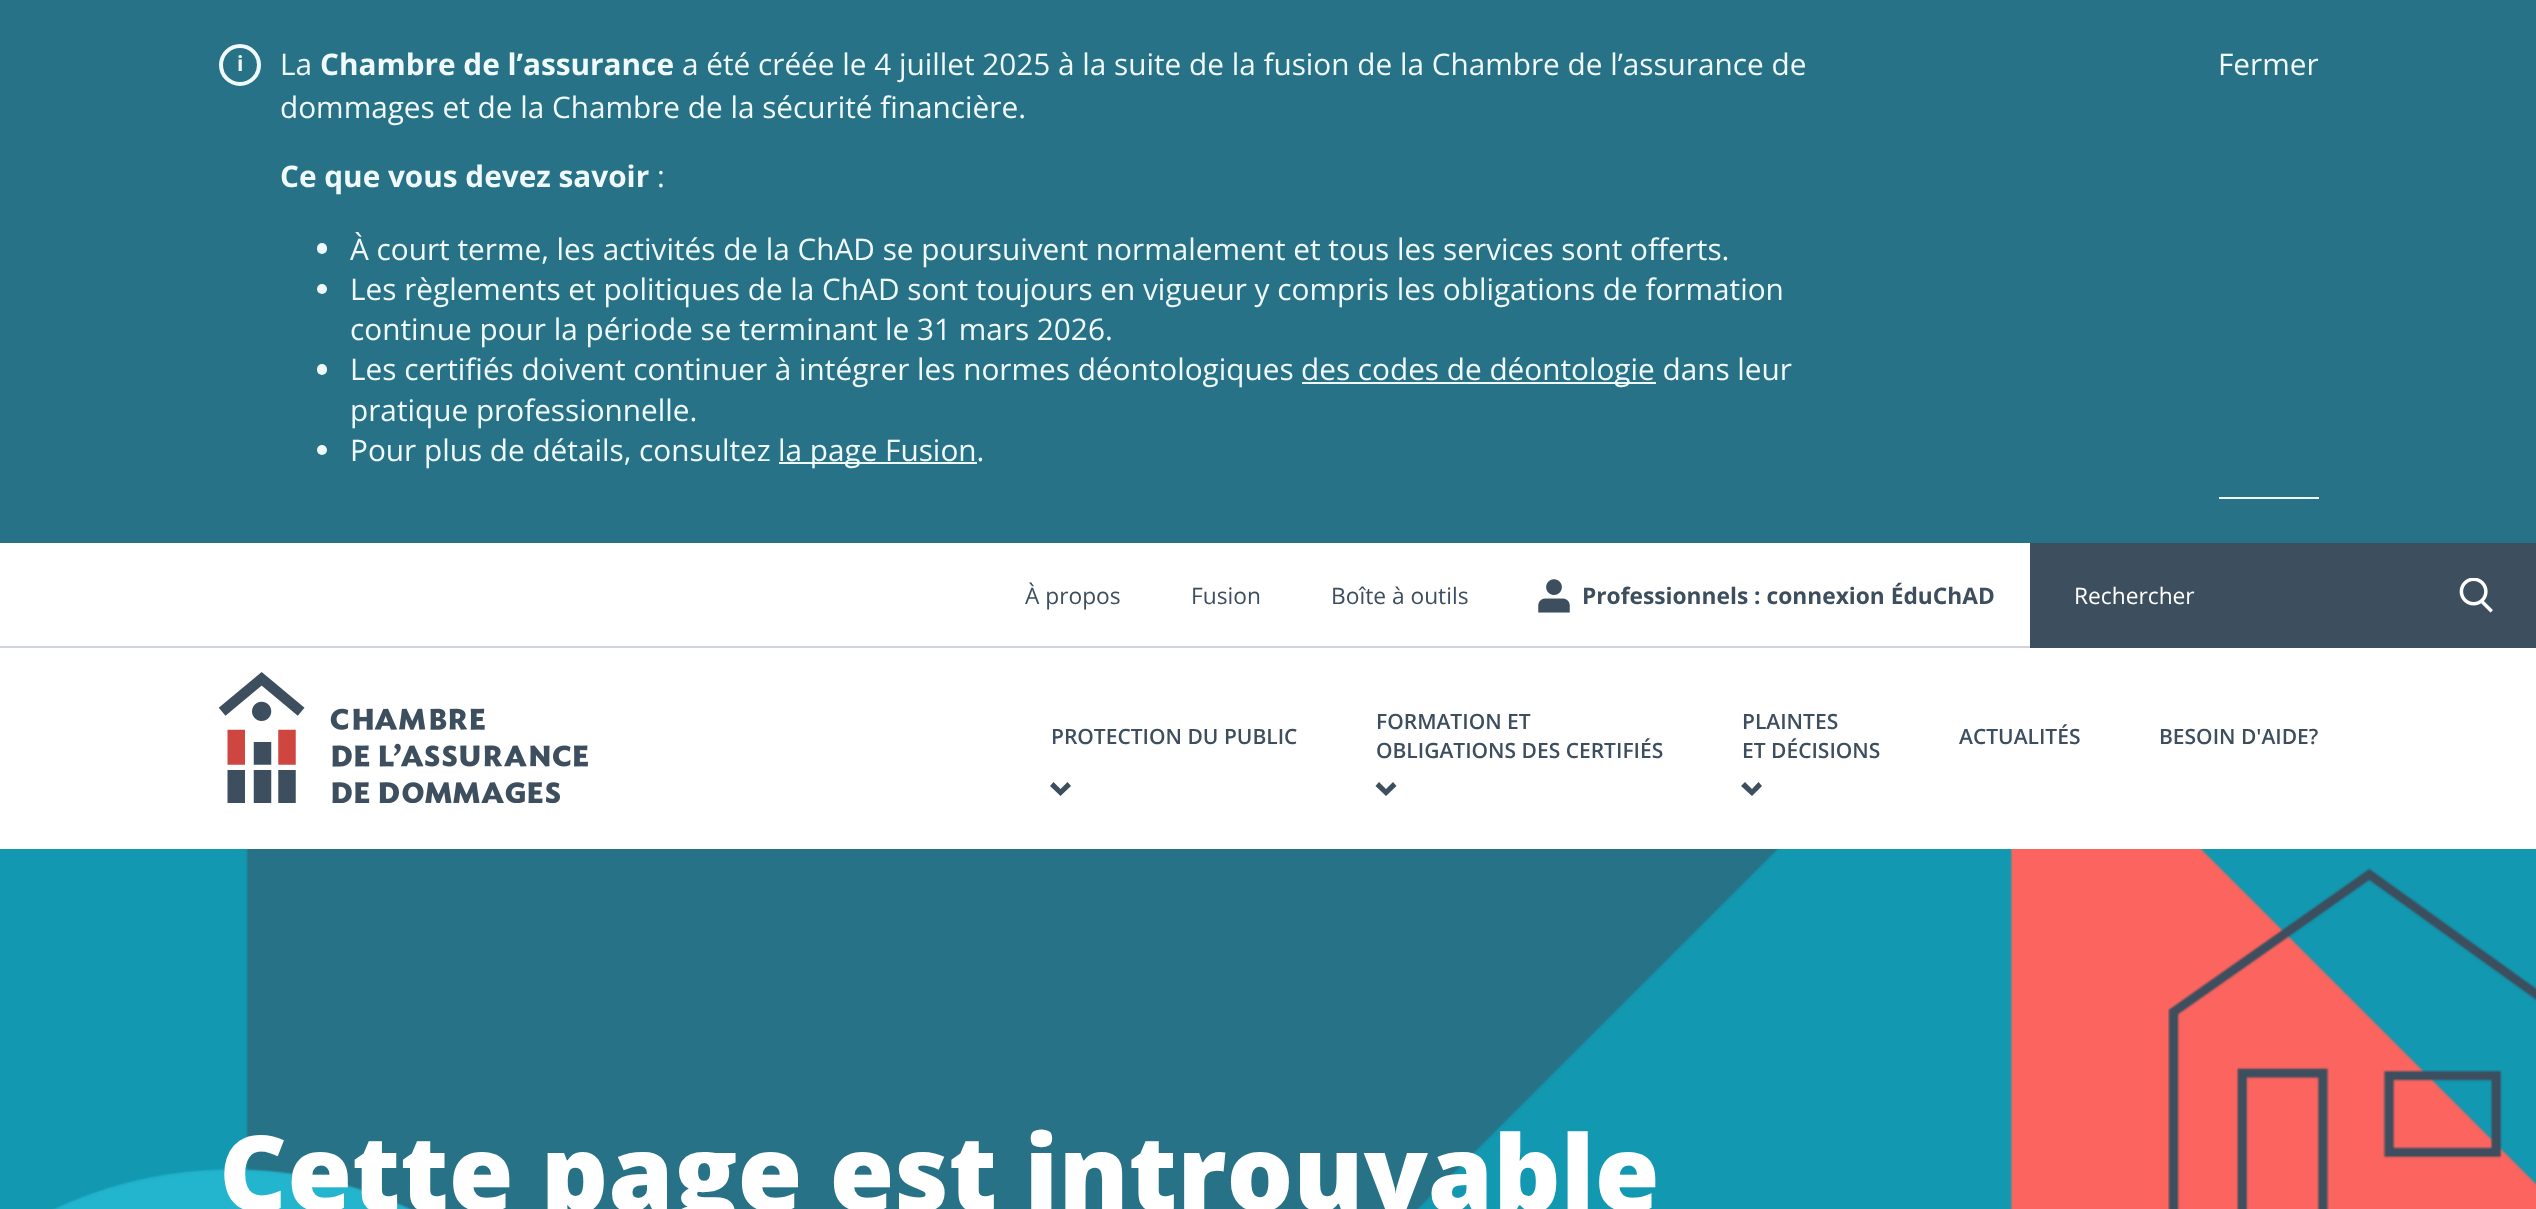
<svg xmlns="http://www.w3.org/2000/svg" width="2536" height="1209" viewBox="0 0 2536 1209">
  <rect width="100%" height="100%" fill="rgb(255,255,255)"/>
  <rect x="0" y="0" width="2536" height="543" fill="rgb(39,114,134)"/>
  <circle cx="240" cy="65" r="19" fill="none" stroke="rgb(240,249,251)" stroke-width="4"/>
  <text x="237" y="71" font-family="Open Sans" font-size="21" font-weight="bold" fill="rgb(240,249,251)">i</text>
  <text x="280" y="75" font-family="Open Sans" font-size="29.75" fill="rgb(240,249,251)">La</text>
  <text x="320" y="75" font-family="Open Sans" font-size="29.75" font-weight="bold" fill="rgb(240,249,251)">Chambre de l’assurance</text>
  <g font-family="Open Sans" font-size="29.75" fill="rgb(240,249,251)">
    <text x="682" y="75">a été créée le 4 juillet 2025 à la suite de la fusion de la Chambre de l’assurance de</text>
    <text x="280" y="118">dommages et de la Chambre de la sécurité financière.</text>
  </g>
  <text x="280" y="187" font-family="Open Sans" font-size="29.75" font-weight="bold" fill="rgb(240,249,251)">Ce que vous devez savoir</text>
  <text x="657" y="187" font-family="Open Sans" font-size="29.75" fill="rgb(240,249,251)">:</text>
  <rect x="317" y="243" width="10" height="11" rx="5" fill="rgb(240,249,251)"/>
  <text x="350" y="260" font-family="Open Sans" font-size="29.75" fill="rgb(240,249,251)">À court terme, les activités de la ChAD se poursuivent normalement et tous les services sont offerts.</text>
  <circle cx="322" cy="289" r="5" fill="rgb(240,249,251)"/>
  <g font-family="Open Sans" font-size="29.75" fill="rgb(240,249,251)">
    <text>
      <tspan x="350" y="300">Les règlements et politiques de la ChAD sont toujours en vigueur y compris les obligations de formation</tspan>
      <tspan x="350" y="340">continue pour la période se terminant le 31 mars 2026.</tspan>
    </text>
  </g>
  <rect x="317" y="364" width="10" height="11" rx="5" fill="rgb(240,249,251)"/>
  <text x="350" y="380" font-family="Open Sans" font-size="29.75" fill="rgb(240,249,251)">Les certifiés doivent continuer à intégrer les normes déontologiques</text>
  <rect x="1302" y="382" width="354" height="2" fill="rgb(240,249,251)"/>
  <g font-family="Open Sans" font-size="29.75" fill="rgb(240,249,251)">
    <text x="1301" y="380">des codes de déontologie dans leur</text>
    <text x="350" y="421">pratique professionnelle.</text>
  </g>
  <circle cx="322" cy="450" r="5" fill="rgb(240,249,251)"/>
  <text x="350" y="461" font-family="Open Sans" font-size="29.75" fill="rgb(240,249,251)">Pour plus de détails, consultez</text>
  <rect x="779" y="462" width="198" height="2" fill="rgb(240,249,251)"/>
  <g font-family="Open Sans" font-size="29.75" fill="rgb(240,249,251)">
    <text x="778" y="461">la page Fusion.</text>
    <text x="2218" y="75">Fermer</text>
  </g>
  <rect x="2219" y="497" width="100" height="2" fill="rgb(240,249,251)"/>
  <rect x="0" y="646" width="2030" height="2" fill="rgb(206,212,218)"/>
  <g font-family="Open Sans" font-size="22.75" fill="rgb(61,78,94)">
    <text x="1025" y="604">À propos</text>
    <text x="1191" y="604">Fusion</text>
    <text x="1331" y="604">Boîte à outils</text>
  </g>
  <image x="1538" y="579" width="32" height="34" href="pic1.png"/>
  <text x="1582" y="604" font-family="Open Sans" font-size="22.75" font-weight="bold" fill="rgb(61,78,94)">Professionnels : connexion ÉduChAD</text>
  <text x="1051" y="744" font-family="Open Sans" font-size="21" font-weight="600" fill="rgb(61,78,94)">PROTECTION DU PUBLIC</text>
  <path d="M1060.5 789L1067.5 782L1071 786L1060.5 796L1050 786L1053.5 782Z" fill="rgb(61,78,94)"/>
  <g font-family="Open Sans" font-size="21" font-weight="600" fill="rgb(61,78,94)">
    <text>
      <tspan x="1376" y="729">FORMATION ET</tspan>
      <tspan x="1376" y="758">OBLIGATIONS DES CERTIFIÉS</tspan>
    </text>
  </g>
  <path d="M1386 789L1393 782L1396.5 786L1386 796L1375.5 786L1379 782Z" fill="rgb(61,78,94)"/>
  <g font-family="Open Sans" font-size="21" font-weight="600" fill="rgb(61,78,94)">
    <text>
      <tspan x="1742" y="729">PLAINTES</tspan>
      <tspan x="1742" y="758">ET DÉCISIONS</tspan>
    </text>
  </g>
  <path d="M1752 789L1758.5 782L1762 786L1752 796L1741 786L1745 782Z" fill="rgb(61,78,94)"/>
  <g font-family="Open Sans" font-size="21" font-weight="600" fill="rgb(61,78,94)">
    <text x="1959" y="744">ACTUALITÉS</text>
    <text x="2159" y="744">BESOIN D'AIDE?</text>
  </g>
  <rect x="2030" y="543" width="506" height="105" fill="rgb(61,78,94)"/>
  <text x="2074" y="604" font-family="Open Sans" font-size="22.75" fill="rgb(255,255,255)">Rechercher</text>
  <image x="2459" y="578" width="34" height="35" href="pic2.png"/>
  <image x="219" y="672" width="369" height="131" href="pic3.png"/>
  <image x="0" y="849" width="2536" height="360" href="pic4.png"/>
  <text x="219" y="1211" font-family="Open Sans" font-size="105" font-weight="800" fill="rgb(255,255,255)">Cette page est introuvable</text>
</svg>
